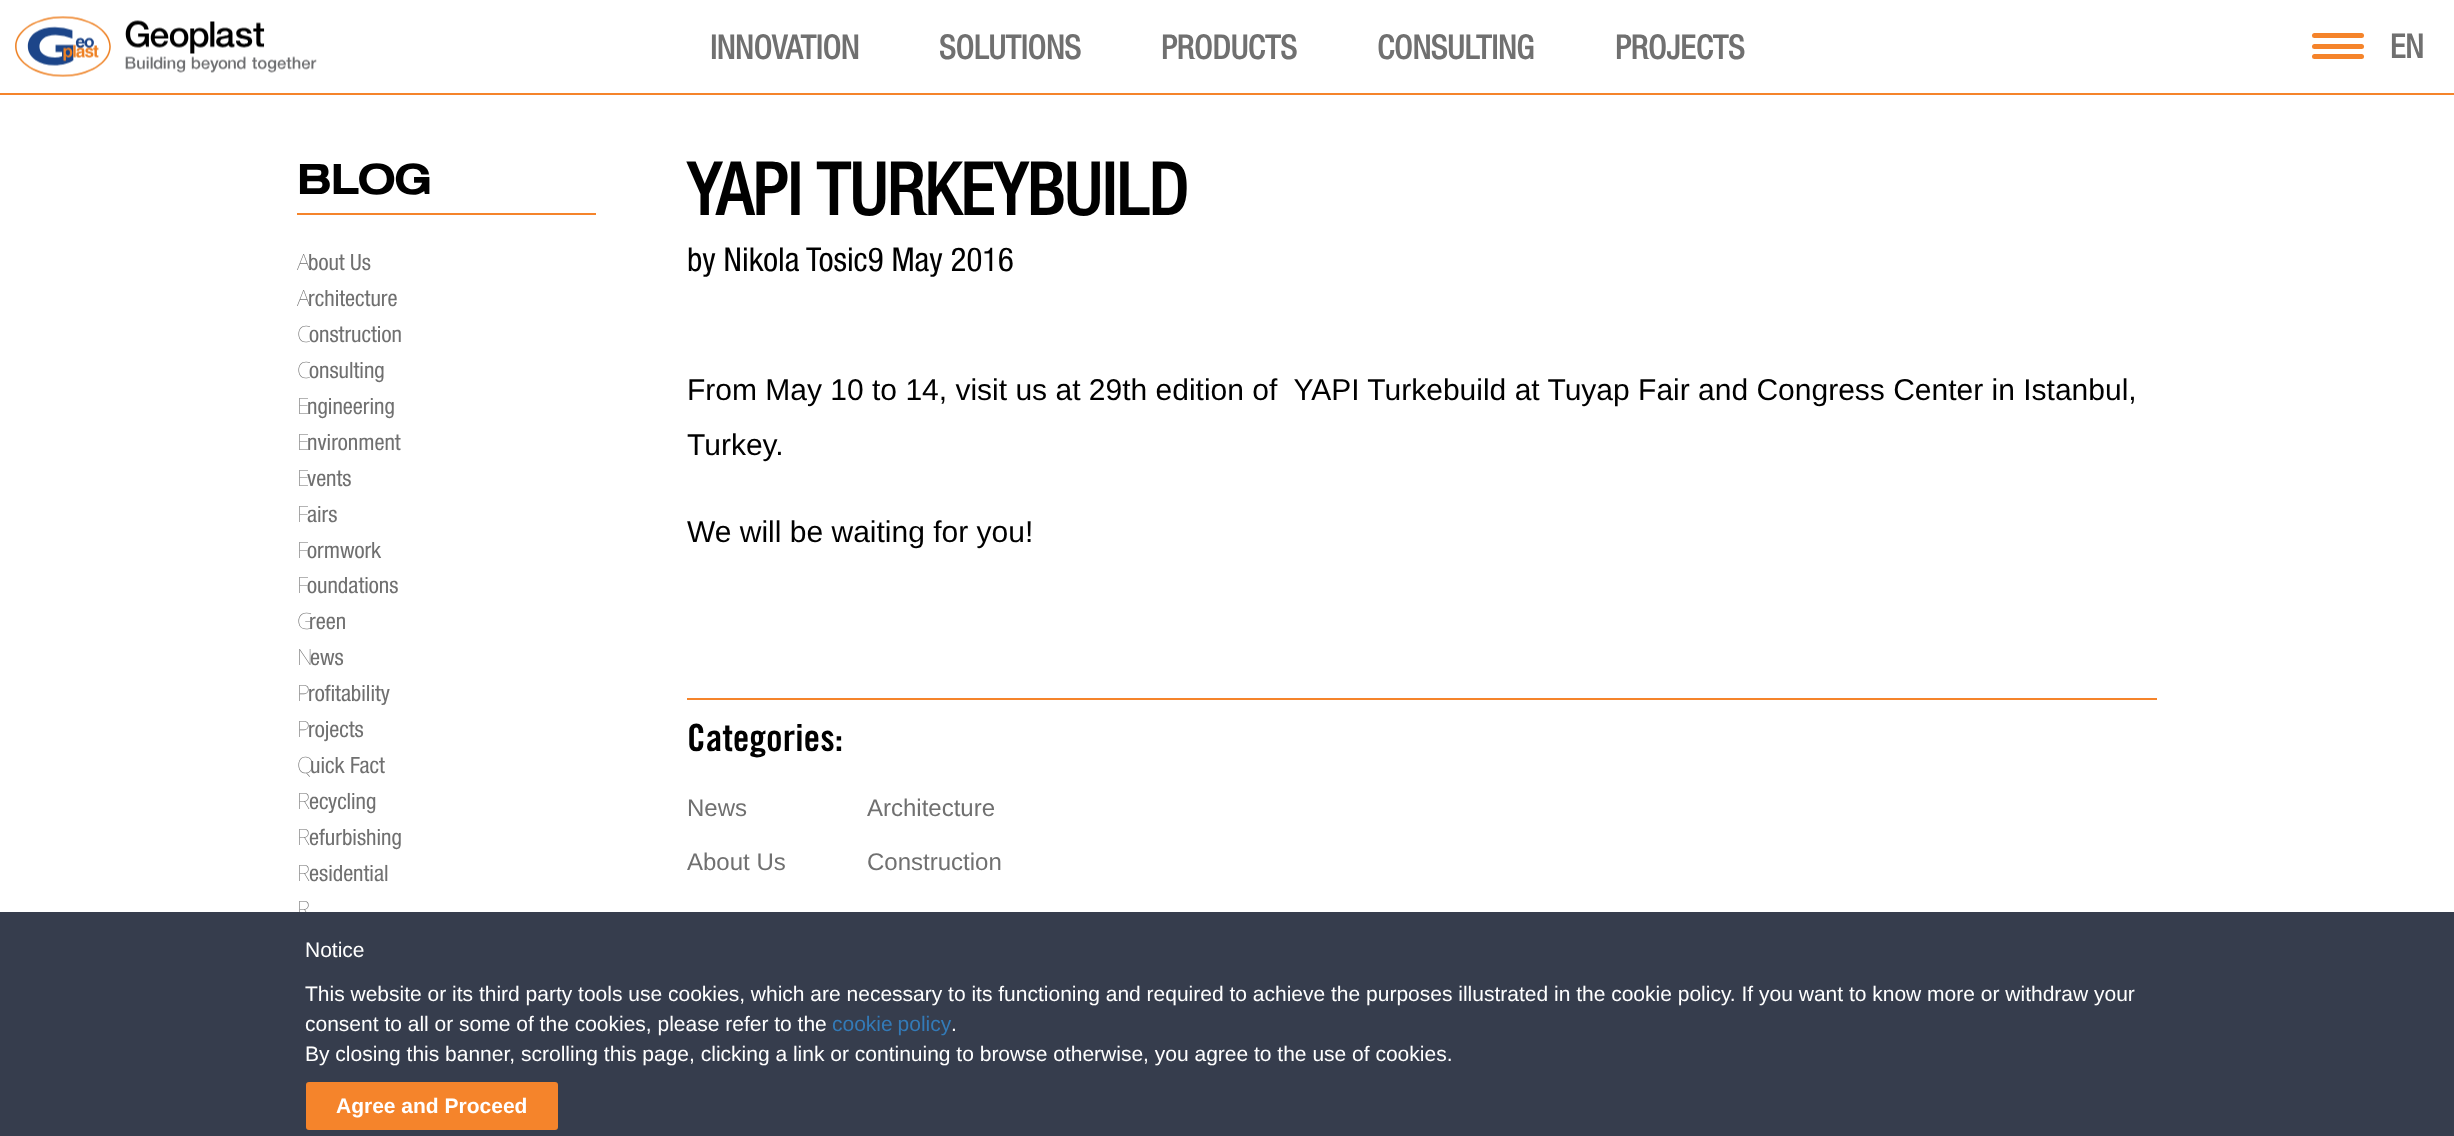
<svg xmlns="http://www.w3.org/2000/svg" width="2454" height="1136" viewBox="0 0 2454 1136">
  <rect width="100%" height="100%" fill="rgb(255,255,255)"/>
  <rect x="0" y="93" width="2454" height="2" fill="rgb(245,132,43)"/>
  <image x="15" y="16" width="302" height="61" href="pic1.png"/>
  <g font-family="Helvetica Neue" font-size="33" font-weight="bold" fill="rgb(112,112,112)">
    <text x="710" y="59">INNOVATION</text>
    <text x="939" y="59">SOLUTIONS</text>
    <text x="1161" y="59">PRODUCTS</text>
    <text x="1377" y="59">CONSULTING</text>
    <text x="1615" y="59">PROJECTS</text>
  </g>
  <rect x="2312" y="44" width="52" height="5" rx="2.5" fill="rgb(245,132,43)"/>
  <rect x="2312" y="33" width="52" height="5" rx="2.5" fill="rgb(245,132,43)"/>
  <rect x="2312" y="54" width="52" height="5" rx="2.5" fill="rgb(245,132,43)"/>
  <text x="2390" y="58" font-family="Helvetica Neue" font-size="33" font-weight="bold" fill="rgb(112,112,112)">EN</text>
  <rect x="297" y="213" width="299" height="2" fill="rgb(245,132,43)"/>
  <text x="297" y="194" font-family="'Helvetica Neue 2'" font-size="40.5" font-weight="bold" fill="rgb(0,0,0)">BLOG</text>
  <text x="297" y="270" font-family="Noto Sans" font-size="22.5" font-weight="100" fill="rgb(112,112,112)">A</text>
  <text x="308" y="270" font-family="Helvetica Neue" font-size="22.5" fill="rgb(112,112,112)">bout Us</text>
  <text x="297" y="306" font-family="Noto Sans" font-size="22.5" font-weight="100" fill="rgb(112,112,112)">A</text>
  <text x="308" y="306" font-family="Helvetica Neue" font-size="22.5" fill="rgb(112,112,112)">rchitecture</text>
  <text x="297" y="342" font-family="Noto Sans" font-size="22.5" font-weight="100" fill="rgb(112,112,112)">C</text>
  <text x="309" y="342" font-family="Helvetica Neue" font-size="22.5" fill="rgb(112,112,112)">onstruction</text>
  <text x="297" y="378" font-family="Noto Sans" font-size="22.5" font-weight="100" fill="rgb(112,112,112)">C</text>
  <text x="309" y="378" font-family="Helvetica Neue" font-size="22.5" fill="rgb(112,112,112)">onsulting</text>
  <text x="297" y="414" font-family="Noto Sans" font-size="22.5" font-weight="100" fill="rgb(112,112,112)">E</text>
  <text x="307" y="414" font-family="Helvetica Neue" font-size="22.5" fill="rgb(112,112,112)">ngineering</text>
  <text x="297" y="450" font-family="Noto Sans" font-size="22.5" font-weight="100" fill="rgb(112,112,112)">E</text>
  <text x="307" y="450" font-family="Helvetica Neue" font-size="22.5" fill="rgb(112,112,112)">nvironment</text>
  <text x="297" y="486" font-family="Noto Sans" font-size="22.5" font-weight="100" fill="rgb(112,112,112)">E</text>
  <text x="307" y="486" font-family="Helvetica Neue" font-size="22.5" fill="rgb(112,112,112)">vents</text>
  <text x="297" y="522" font-family="Noto Sans" font-size="22.5" font-weight="100" fill="rgb(112,112,112)">F</text>
  <text x="307" y="522" font-family="Helvetica Neue" font-size="22.5" fill="rgb(112,112,112)">airs</text>
  <text x="297" y="558" font-family="Noto Sans" font-size="22.5" font-weight="100" fill="rgb(112,112,112)">F</text>
  <text x="307" y="558" font-family="Helvetica Neue" font-size="22.5" fill="rgb(112,112,112)">ormwork</text>
  <text x="297" y="593" font-family="Noto Sans" font-size="22.5" font-weight="100" fill="rgb(112,112,112)">F</text>
  <text x="307" y="593" font-family="Helvetica Neue" font-size="22.5" fill="rgb(112,112,112)">oundations</text>
  <text x="297" y="629" font-family="Noto Sans" font-size="22.5" font-weight="100" fill="rgb(112,112,112)">G</text>
  <text x="309" y="629" font-family="Helvetica Neue" font-size="22.5" fill="rgb(112,112,112)">reen</text>
  <text x="297" y="665" font-family="Noto Sans" font-size="22.5" font-weight="100" fill="rgb(112,112,112)">N</text>
  <text x="310" y="665" font-family="Helvetica Neue" font-size="22.5" fill="rgb(112,112,112)">ews</text>
  <text x="297" y="701" font-family="Noto Sans" font-size="22.5" font-weight="100" fill="rgb(112,112,112)">P</text>
  <text x="308" y="701" font-family="Helvetica Neue" font-size="22.5" fill="rgb(112,112,112)">rofitability</text>
  <text x="297" y="737" font-family="Noto Sans" font-size="22.5" font-weight="100" fill="rgb(112,112,112)">P</text>
  <text x="308" y="737" font-family="Helvetica Neue" font-size="22.5" fill="rgb(112,112,112)">rojects</text>
  <text x="297" y="773" font-family="Noto Sans" font-size="22.5" font-weight="100" fill="rgb(112,112,112)">Q</text>
  <text x="310" y="773" font-family="Helvetica Neue" font-size="22.5" fill="rgb(112,112,112)">uick Fact</text>
  <text x="297" y="809" font-family="Noto Sans" font-size="22.5" font-weight="100" fill="rgb(112,112,112)">R</text>
  <text x="309" y="809" font-family="Helvetica Neue" font-size="22.5" fill="rgb(112,112,112)">ecycling</text>
  <text x="297" y="845" font-family="Noto Sans" font-size="22.5" font-weight="100" fill="rgb(112,112,112)">R</text>
  <text x="309" y="845" font-family="Helvetica Neue" font-size="22.5" fill="rgb(112,112,112)">efurbishing</text>
  <text x="297" y="881" font-family="Noto Sans" font-size="22.5" font-weight="100" fill="rgb(112,112,112)">R</text>
  <text x="309" y="881" font-family="Helvetica Neue" font-size="22.5" fill="rgb(112,112,112)">esidential</text>
  <text x="297" y="917" font-family="Noto Sans" font-size="22.5" font-weight="100" fill="rgb(112,112,112)">R</text>
  <text x="687" y="215" font-family="Helvetica Neue" font-size="72" font-weight="bold" fill="rgb(0,0,0)">YAPI TURKEYBUILD</text>
  <text x="687" y="271" font-family="Helvetica Neue" font-size="33" fill="rgb(0,0,0)">by Nikola Tosic9 May 2016</text>
  <g font-family="Liberation Sans" font-size="30" fill="rgb(0,0,0)">
    <text xml:space="preserve"><tspan x="687" y="400">From May 10 to 14, visit us at 29th edition of  YAPI Turkebuild at Tuyap Fair and Congress Center in Istanbul,</tspan><tspan x="687" y="455">Turkey.</tspan></text>
    <text x="687" y="542">We will be waiting for you!</text>
  </g>
  <rect x="687" y="698" width="1470" height="2" fill="rgb(245,132,43)"/>
  <text x="687" y="751" font-family="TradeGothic" font-size="37.5" font-weight="bold" fill="rgb(0,0,0)">Categories:</text>
  <g font-family="Liberation Sans" font-size="24" fill="rgb(112,112,112)">
    <text x="687" y="816">News</text>
    <text x="867" y="816">Architecture</text>
    <text x="687" y="870">About Us</text>
    <text x="867" y="870">Construction</text>
  </g>
  <rect x="0" y="912" width="2454" height="224" fill="rgb(54,61,77)"/>
  <g font-family="Liberation Sans" font-size="21" fill="rgb(255,255,255)">
    <text x="305" y="957">Notice</text>
    <text>
      <tspan x="305" y="1001">This website or its third party tools use cookies, which are necessary to its functioning and required to achieve the purposes illustrated in the cookie policy. If you want to know more or withdraw your</tspan>
      <tspan x="305" y="1031">consent to all or some of the cookies, please refer to the</tspan>
    </text>
  </g>
  <text x="832" y="1031" word-spacing="-1" font-family="Liberation Sans" font-size="21" fill="rgb(51,122,183)">cookie policy</text>
  <g font-family="Liberation Sans" font-size="21" fill="rgb(255,255,255)">
    <text x="951" y="1031">.</text>
    <text x="305" y="1061">By closing this banner, scrolling this page, clicking a link or continuing to browse otherwise, you agree to the use of cookies.</text>
  </g>
  <rect x="306" y="1082" width="252" height="48" rx="3" fill="rgb(245,132,43)"/>
  <text x="336" y="1113" font-family="Liberation Sans" font-size="21" font-weight="bold" fill="rgb(255,255,255)">Agree and Proceed</text>
</svg>
